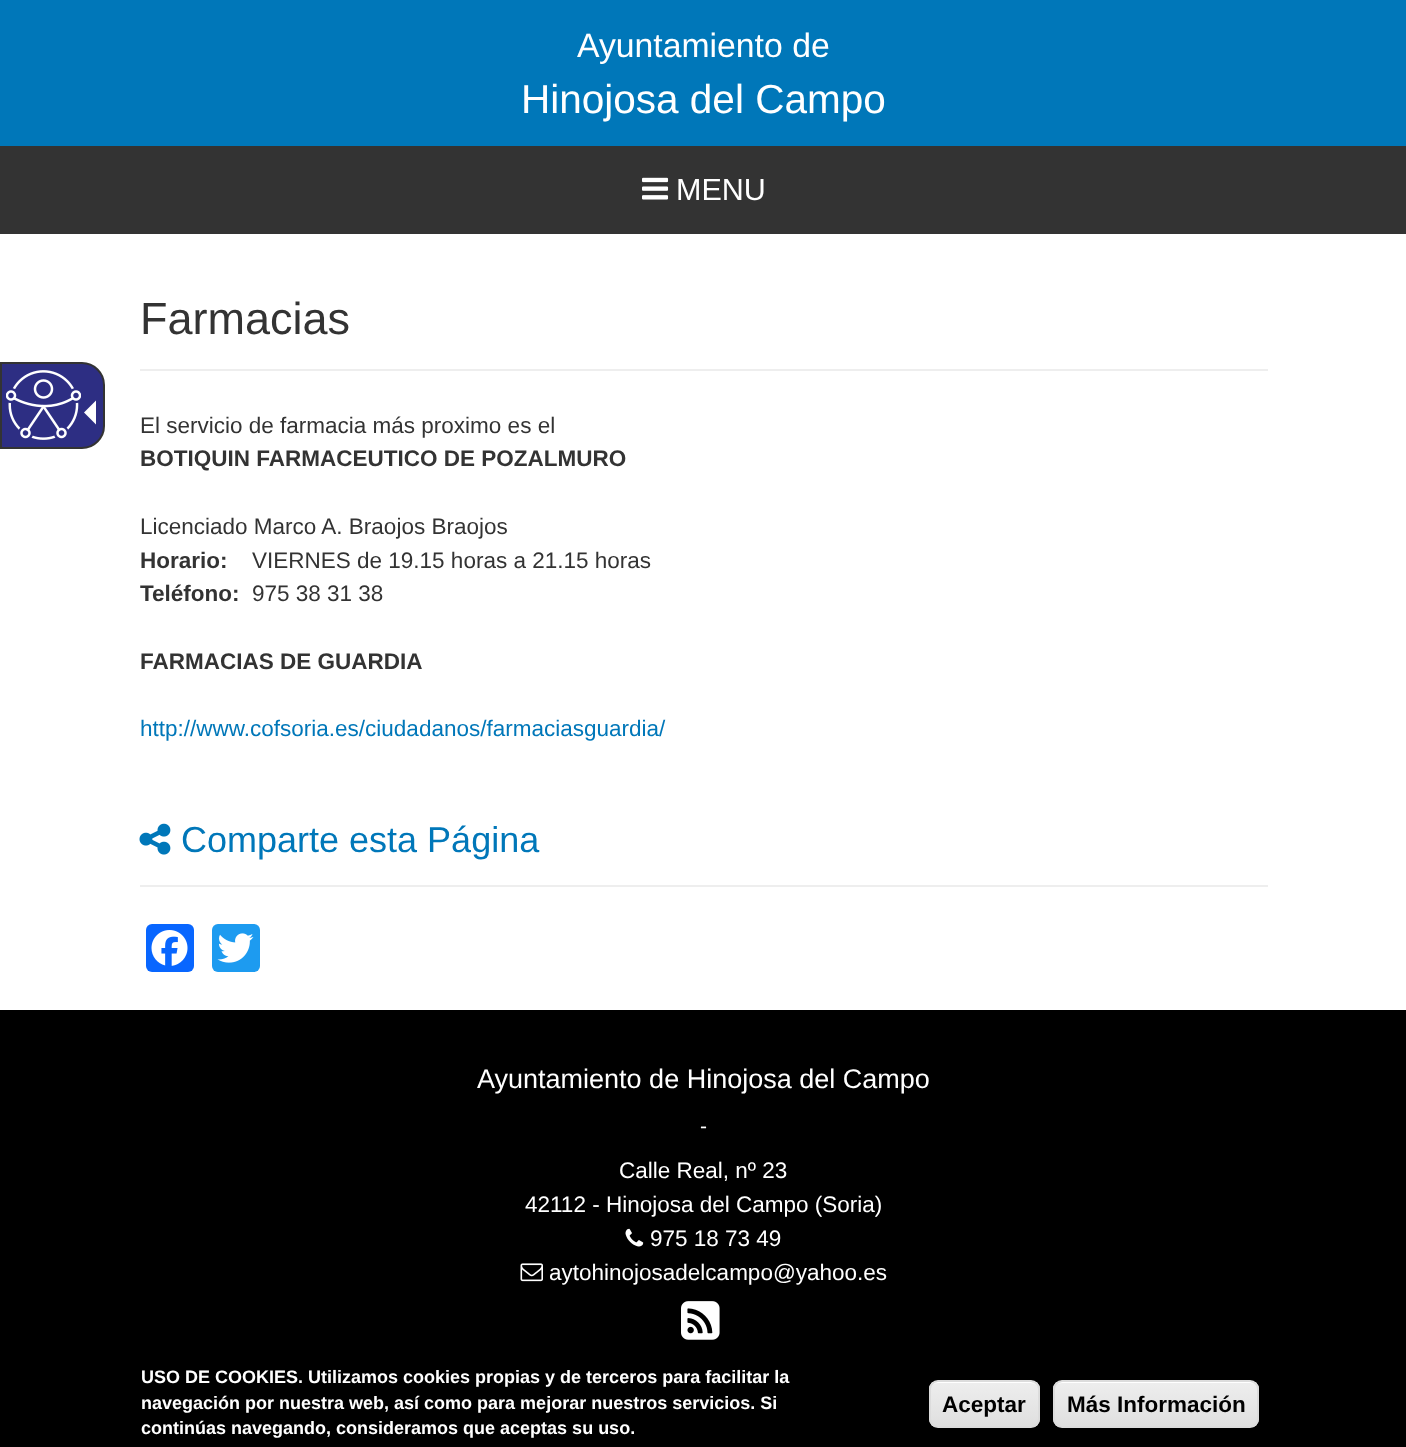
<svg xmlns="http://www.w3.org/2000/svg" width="1406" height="1447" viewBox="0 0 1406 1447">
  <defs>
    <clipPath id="clip1"><rect x="929" y="1380" width="111" height="48" rx="9"/></clipPath>
    <linearGradient id="g1" gradientUnits="userSpaceOnUse" x1="984" y1="1382" x2="984" y2="1427"><stop offset="0.05" stop-color="rgb(237,237,237)"/><stop offset="1" stop-color="rgb(223,223,223)"/></linearGradient>
    <clipPath id="clip2"><rect x="1053" y="1380" width="206" height="48" rx="9"/></clipPath>
    <linearGradient id="g2" gradientUnits="userSpaceOnUse" x1="1156" y1="1382" x2="1156" y2="1427"><stop offset="0.05" stop-color="rgb(237,237,237)"/><stop offset="1" stop-color="rgb(223,223,223)"/></linearGradient>
  </defs>
  <rect width="100%" height="100%" fill="rgb(255,255,255)"/>
  <rect x="0" y="0" width="1406" height="146" fill="rgb(0,119,185)"/>
  <text x="577" y="57" font-family="Liberation Sans" font-size="33.75" fill="rgb(255,255,255)">Ayuntamiento de</text>
  <text x="521" y="113" font-family="Liberation Sans" font-size="40.5" fill="rgb(255,255,255)">Hinojosa del Campo</text>
  <rect x="0" y="146" width="1406" height="88" fill="rgb(51,51,51)"/>
  <image x="642" y="177" width="27" height="23" href="pic1.png"/>
  <text x="676" y="200" font-family="Liberation Sans" font-size="30.5" fill="rgb(255,255,255)">MENU</text>
  <path d="M1 363H82C94 363 104 373 104 385V426C104 438 94 448 82 448H1Z" fill="rgb(45,46,131)" stroke="rgb(51,51,51)" stroke-width="2"/>
  <image x="6" y="370" width="75" height="70" href="pic2.png"/>
  <path d="M96 400.5V424.5L84 412.5Z" fill="rgb(255,255,255)"/>
  <rect x="140" y="369" width="1128" height="2" fill="rgb(238,238,238)"/>
  <text x="140" y="334" font-family="Liberation Sans" font-size="45" fill="rgb(51,51,51)">Farmacias</text>
  <text x="140" y="433" font-family="Liberation Sans" font-size="22.5" fill="rgb(51,51,51)">El servicio de farmacia más proximo es el</text>
  <text x="140" y="466" font-family="Liberation Sans" font-size="22.5" font-weight="bold" fill="rgb(51,51,51)">BOTIQUIN FARMACEUTICO DE POZALMURO</text>
  <text x="140" y="534" font-family="Liberation Sans" font-size="22.5" fill="rgb(51,51,51)">Licenciado Marco A. Braojos Braojos</text>
  <text x="140" y="568" font-family="Liberation Sans" font-size="22.5" font-weight="bold" fill="rgb(51,51,51)">Horario:</text>
  <text x="252" y="568" font-family="Liberation Sans" font-size="22.5" fill="rgb(51,51,51)">VIERNES de 19.15 horas a 21.15 horas</text>
  <text x="140" y="601" font-family="Liberation Sans" font-size="22.5" font-weight="bold" fill="rgb(51,51,51)">Teléfono:</text>
  <text x="252" y="601" font-family="Liberation Sans" font-size="22.5" fill="rgb(51,51,51)">975 38 31 38</text>
  <text x="140" y="669" font-family="Liberation Sans" font-size="22.5" font-weight="bold" fill="rgb(51,51,51)">FARMACIAS DE GUARDIA</text>
  <text x="140" y="736" font-family="Liberation Sans" font-size="22.5" fill="rgb(0,119,185)">http://www.cofsoria.es/ciudadanos/farmaciasguardia/</text>
  <rect x="140" y="885" width="1128" height="2" fill="rgb(238,238,238)"/>
  <image x="139" y="823" width="32" height="32" href="pic3.png"/>
  <text x="181" y="852" font-family="Liberation Sans" font-size="36" fill="rgb(0,119,185)">Comparte esta Página</text>
  <rect x="146" y="924" width="48" height="48" rx="6" fill="rgb(8,102,255)"/>
  <image x="151" y="930" width="37" height="36" href="pic4.png"/>
  <rect x="212" y="924" width="48" height="48" rx="6" fill="rgb(29,155,240)"/>
  <image x="217" y="933" width="37" height="30" href="pic5.png"/>
  <rect x="0" y="1010" width="1406" height="437" fill="rgb(0,0,0)"/>
  <text x="477" y="1088" font-family="Liberation Sans" font-size="27" fill="rgb(255,255,255)">Ayuntamiento de Hinojosa del Campo</text>
  <text x="700" y="1133" font-family="Liberation Sans" font-size="21" fill="rgb(255,255,255)">-</text>
  <g font-family="Liberation Sans" font-size="22.5" fill="rgb(255,255,255)">
    <text x="619" y="1178">Calle Real, nº 23</text>
    <text x="525" y="1212">42112 - Hinojosa del Campo (Soria)</text>
  </g>
  <image x="625" y="1228" width="19" height="19" href="pic6.png"/>
  <text x="650" y="1246" font-family="Liberation Sans" font-size="22.5" fill="rgb(255,255,255)">975 18 73 49</text>
  <image x="520" y="1263" width="23" height="19" href="pic7.png"/>
  <text x="549" y="1280" font-family="Liberation Sans" font-size="22.5" fill="rgb(255,255,255)">aytohinojosadelcampo@yahoo.es</text>
  <image x="681" y="1301" width="39" height="39" href="pic8.png"/>
  <g font-family="Liberation Sans" font-size="18" font-weight="bold" fill="rgb(255,255,255)">
    <text>
      <tspan x="141" y="1383">USO DE COOKIES. Utilizamos cookies propias y de terceros para facilitar la</tspan>
      <tspan x="141" y="1409">navegación por nuestra web, así como para mejorar nuestros servicios. Si</tspan>
      <tspan x="141" y="1434">continúas navegando, consideramos que aceptas su uso.</tspan>
    </text>
  </g>
  <g clip-path="url(#clip1)">
    <rect x="929" y="1382" width="111" height="45" fill="url(#g1)"/>
  </g>
  <path d="M938 1383H1030C1035 1383 1038 1386 1038 1390C1038 1386 1034 1382 1030 1382H938C934 1382 930 1386 930 1390C930 1386 933 1383 938 1383Z" fill="rgb(255,255,255)"/>
  <rect x="930" y="1381" width="109" height="46" rx="8" fill="none" stroke="rgb(220,220,220)" stroke-width="2"/>
  <text x="942" y="1412" font-family="Liberation Sans" font-size="22.5" font-weight="bold" fill="rgb(0,0,0)">Aceptar</text>
  <g clip-path="url(#clip2)">
    <rect x="1053" y="1382" width="206" height="45" fill="url(#g2)"/>
  </g>
  <path d="M1062 1383H1250C1254 1383 1257 1386 1257 1390C1257 1386 1253 1382 1249 1382H1063C1061 1382 1059 1383 1057 1384C1059 1384 1060 1383 1062 1383Z" fill="rgb(255,255,255)"/>
  <rect x="1054" y="1381" width="204" height="46" rx="8" fill="none" stroke="rgb(220,220,220)" stroke-width="2"/>
  <text x="1067" y="1412" font-family="Liberation Sans" font-size="22.5" font-weight="bold" fill="rgb(0,0,0)">Más Información</text>
</svg>
